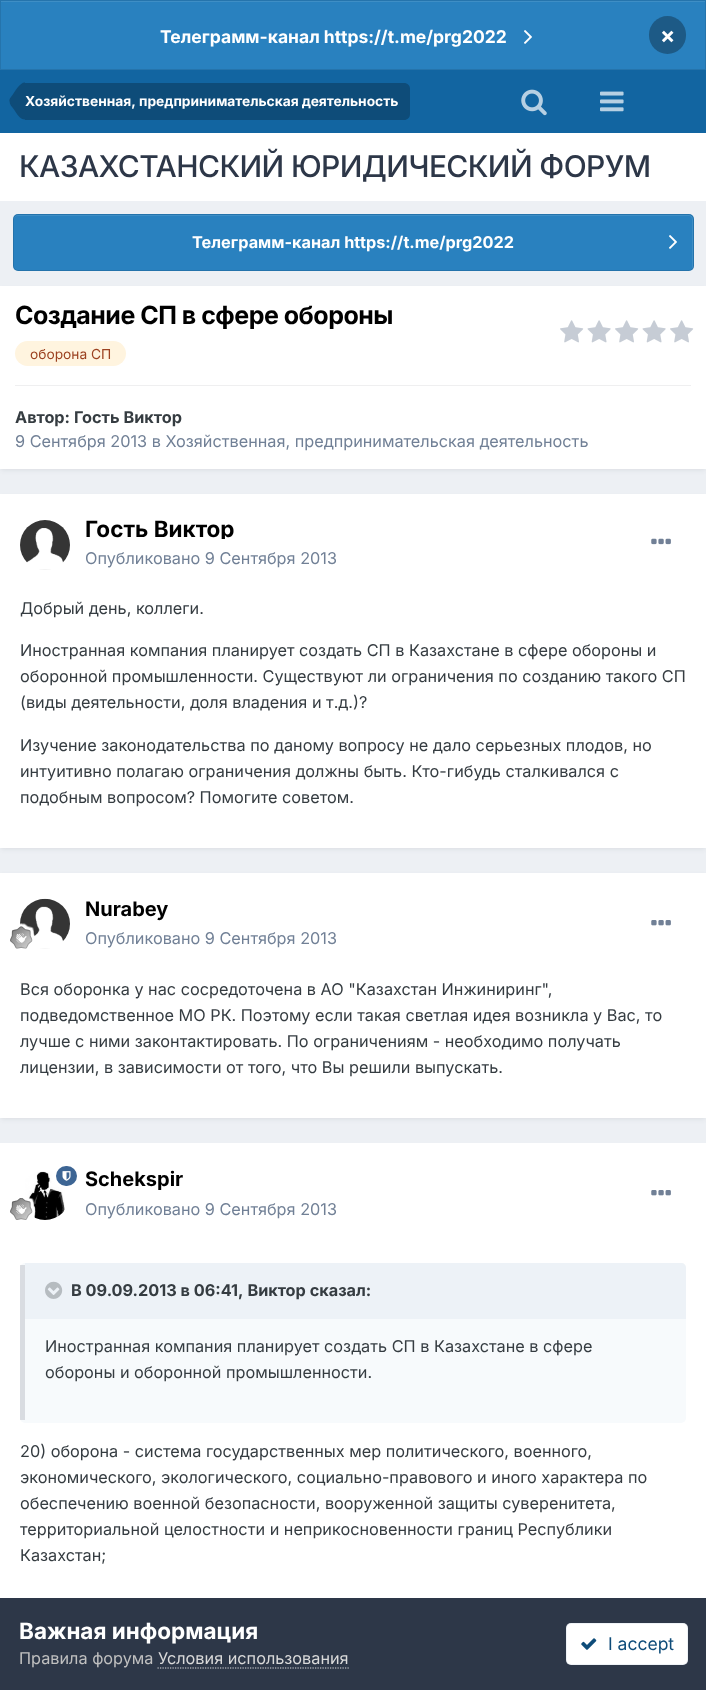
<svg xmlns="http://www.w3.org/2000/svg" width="706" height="1690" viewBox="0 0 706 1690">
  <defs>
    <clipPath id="clip1"><rect x="85" y="519" width="150" height="20"/></clipPath>
  </defs>
  <rect width="100%" height="100%" fill="rgb(237,240,244)"/>
  <rect x="1" y="2" width="704" height="67" fill="rgb(41,129,191)"/>
  <rect x="1" y="1" width="704" height="1" fill="rgb(62,142,197)"/>
  <rect x="0.5" y="0.5" width="705" height="69" fill="none" stroke="rgb(37,116,172)"/>
  <text x="160" y="43" font-family="Inter" font-size="17.5" font-weight="bold" fill="rgb(255,255,255)">Телеграмм-канал https://t.me/prg2022</text>
  <image x="524" y="30" width="8" height="14" href="pic1.png"/>
  <rect x="649" y="16" width="37" height="38" rx="18.5" fill="rgb(29,90,134)"/>
  <text x="660" y="43" font-family="Inter" font-size="22.5" font-weight="bold" fill="rgb(255,255,255)">×</text>
  <rect x="0" y="70" width="706" height="63" fill="rgb(18,101,161)"/>
  <path d="M25 83H404C407.5 83 410 85.5 410 89V114C410 117.5 407.5 120 404 120H25Z" fill="rgb(14,76,121)"/>
  <path d="M25 119.5C19.5 119.5 16.5 113 14 109.5C12 107 9.5 104.5 9.5 101H25ZM25 82.5V101H9.5C9 99 11.5 96.5 12.5 95C15.5 91 19.5 82.5 25 82.5Z" fill="rgb(14,76,121)"/>
  <text x="25" y="106" font-family="Inter" font-size="13.75" font-weight="bold" fill="rgb(255,255,255)">Хозяйственная, предпринимательская деятельность</text>
  <image x="521" y="89" width="26" height="27" href="pic2.png"/>
  <image x="600" y="91" width="24" height="21" href="pic3.png"/>
  <rect x="0" y="133" width="706" height="68" fill="rgb(255,255,255)"/>
  <text x="19" y="177" font-family="Inter" font-size="30" font-weight="500" letter-spacing="-0.6" fill="rgb(45,55,72)">КАЗАХСТАНСКИЙ ЮРИДИЧЕСКИЙ ФОРУМ</text>
  <rect x="13" y="214" width="681" height="57" rx="5" fill="rgb(41,129,191)"/>
  <path d="M18 216H689C691 216 692 218 692 220V269C693 268 693 267 693 266V219C693 217 691 215 689 215H18C16 215 14 217 14 219V220C14 218 15 216 18 216Z" fill="rgb(62,142,197)"/>
  <rect x="13.5" y="214.5" width="680" height="56" rx="4.5" fill="none" stroke="rgba(0,0,0,0.1)"/>
  <text x="192" y="248" font-family="Inter" font-size="16.25" font-weight="bold" fill="rgb(255,255,255)">Телеграмм-канал https://t.me/prg2022</text>
  <image x="669" y="235" width="8" height="14" href="pic1.png"/>
  <rect x="1" y="290" width="704" height="180" fill="rgba(45,55,72,0.1)" filter="blur(2.5px)"/>
  <rect x="0" y="286" width="706" height="183" fill="rgb(255,255,255)"/>
  <text x="15" y="324" font-family="Inter" font-size="25" font-weight="bold" letter-spacing="-0.5" fill="rgb(0,0,0)">Создание СП в сфере обороны</text>
  <rect x="15" y="341" width="111" height="25" rx="12.5" fill="rgb(255,244,223)"/>
  <text x="30" y="359" font-family="Inter" font-size="13.75" fill="rgb(156,66,33)">оборона СП</text>
  <image x="560" y="320" width="24" height="23" href="pic4.png"/>
  <image x="587" y="320" width="24" height="23" href="pic5.png"/>
  <image x="615" y="320" width="24" height="23" href="pic4.png"/>
  <image x="642" y="320" width="24" height="23" href="pic5.png"/>
  <image x="670" y="320" width="24" height="23" href="pic4.png"/>
  <rect x="15" y="385" width="676" height="1" fill="rgb(239,239,240)"/>
  <text x="15" y="423" font-family="Inter" font-size="16.25" font-weight="bold" fill="rgb(53,60,65)">Автор: Гость Виктор</text>
  <text x="15" y="447" font-family="Inter" font-size="16.25" fill="rgb(113,128,150)">9 Сентября 2013 в Хозяйственная, предпринимательская деятельность</text>
  <rect x="1" y="498" width="704" height="351" fill="rgba(45,55,72,0.1)" filter="blur(2.5px)"/>
  <rect x="0" y="494" width="706" height="354" fill="rgb(255,255,255)"/>
  <image x="20" y="520" width="50" height="50" href="pic6.png"/>
  <g clip-path="url(#clip1)">
    <text x="85" y="537" font-family="Inter" font-size="22.5" font-weight="bold" fill="rgb(0,0,0)">Гость Виктор</text>
  </g>
  <text x="85" y="564" font-family="Inter" font-size="16.25" fill="rgb(113,128,150)">Опубликовано 9 Сентября 2013</text>
  <image x="651" y="538" width="20" height="7" href="pic7.png"/>
  <g font-family="Inter" font-size="16.25" fill="rgb(53,60,65)">
    <text x="20" y="614">Добрый день, коллеги.</text>
    <text>
      <tspan x="20" y="656">Иностранная компания планирует создать СП в Казахстане в сфере обороны и</tspan>
      <tspan x="20" y="682">оборонной промышленности. Существуют ли ограничения по созданию такого СП</tspan>
      <tspan x="20" y="708">(виды деятельности, доля владения и т.д.)?</tspan>
    </text>
    <text>
      <tspan x="20" y="751">Изучение законодательства по даному вопросу не дало серьезных плодов, но</tspan>
      <tspan x="20" y="777">интуитивно полагаю ограничения должны быть. Кто-гибудь сталкивался с</tspan>
      <tspan x="20" y="803">подобным вопросом? Помогите советом.</tspan>
    </text>
  </g>
  <rect x="1" y="876" width="704" height="243" fill="rgba(45,55,72,0.1)" filter="blur(2.5px)"/>
  <rect x="0" y="873" width="706" height="245" fill="rgb(255,255,255)"/>
  <image x="20" y="898" width="50" height="51" href="pic8.png"/>
  <image x="10" y="923" width="25" height="26" href="pic9.png"/>
  <text x="85" y="916" font-family="Inter" font-size="20" font-weight="bold" fill="rgb(0,0,0)">Nurabey</text>
  <text x="85" y="944" font-family="Inter" font-size="16.25" fill="rgb(113,128,150)">Опубликовано 9 Сентября 2013</text>
  <image x="651" y="920" width="20" height="6" href="pic10.png"/>
  <g font-family="Inter" font-size="16.25" fill="rgb(53,60,65)">
    <text>
      <tspan x="20" y="995">Вся оборонка у нас сосредоточена в АО "Казахстан Инжиниринг",</tspan>
      <tspan x="20" y="1021">подведомственное МО РК. Поэтому если такая светлая идея возникла у Вас, то</tspan>
      <tspan x="20" y="1047">лучше с ними законтактировать. По ограничениям - необходимо получать</tspan>
      <tspan x="20" y="1073">лицензии, в зависимости от того, что Вы решили выпускать.</tspan>
    </text>
  </g>
  <rect x="0" y="1143" width="706" height="455" fill="rgb(255,255,255)"/>
  <image x="25" y="1171" width="40" height="49" href="pic12.png"/>
  <image x="10" y="1197" width="26" height="23" href="pic11.png"/>
  <rect x="54.5" y="1164.5" width="24" height="23" rx="11.5" fill="rgb(61,101,148)" stroke="rgb(255,255,255)" stroke-width="3"/>
  <image x="62" y="1171" width="9" height="10" href="pic13.png"/>
  <text x="85" y="1186" font-family="Inter" font-size="20" font-weight="bold" fill="rgb(0,0,0)">Schekspir</text>
  <text x="85" y="1215" font-family="Inter" font-size="16.25" fill="rgb(113,128,150)">Опубликовано 9 Сентября 2013</text>
  <image x="651" y="1190" width="20" height="6" href="pic10.png"/>
  <rect x="20" y="1263" width="666" height="160" rx="5" fill="rgb(247,250,252)"/>
  <rect x="20" y="1265" width="5" height="155" fill="rgba(45,55,72,0.15)"/>
  <path d="M25 1263H681C684 1263 686 1265 686 1268V1319H25Z" fill="rgb(237,242,247)"/>
  <image x="45" y="1281" width="18" height="18" href="pic14.png"/>
  <text x="71" y="1296" font-family="Inter" font-size="16.25" font-weight="bold" fill="rgb(53,60,65)">В 09.09.2013 в 06:41, Виктор сказал:</text>
  <g font-family="Inter" font-size="16.25" fill="rgb(53,60,65)">
    <text>
      <tspan x="45" y="1352">Иностранная компания планирует создать СП в Казахстане в сфере</tspan>
      <tspan x="45" y="1378">обороны и оборонной промышленности.</tspan>
    </text>
    <text>
      <tspan x="20" y="1457">20) оборона - система государственных мер политического, военного,</tspan>
      <tspan x="20" y="1483">экономического, экологического, социально-правового и иного характера по</tspan>
      <tspan x="20" y="1509">обеспечению военной безопасности, вооруженной защиты суверенитета,</tspan>
      <tspan x="20" y="1535">территориальной целостности и неприкосновенности границ Республики</tspan>
      <tspan x="20" y="1561">Казахстан;</tspan>
    </text>
  </g>
  <rect x="0" y="1598" width="706" height="92" fill="rgb(45,55,72)"/>
  <text x="19" y="1639" font-family="Inter" font-size="22.5" font-weight="bold" fill="rgb(255,255,255)">Важная информация</text>
  <text x="19" y="1664" font-family="Inter" font-size="16.25" fill="rgb(192,192,192)">Правила форума</text>
  <text x="158" y="1664" font-family="Inter" font-size="16.25" fill="rgb(218,218,218)">Условия использования</text>
  <path d="M157.5 1668H349" fill="none" stroke="rgb(218,218,218)" stroke-width="1.2" stroke-dasharray="1.25 1.25"/>
  <rect x="566" y="1623" width="122" height="42" rx="5" fill="rgb(255,255,255)"/>
  <rect x="566.5" y="1623.5" width="121" height="41" rx="4.5" fill="none" stroke="rgba(14,76,121,0.07)"/>
  <image x="581" y="1638" width="16" height="12" href="pic15.png"/>
  <text x="608" y="1650" font-family="Inter" font-size="17.5" fill="rgb(14,76,121)">I accept</text>
</svg>
